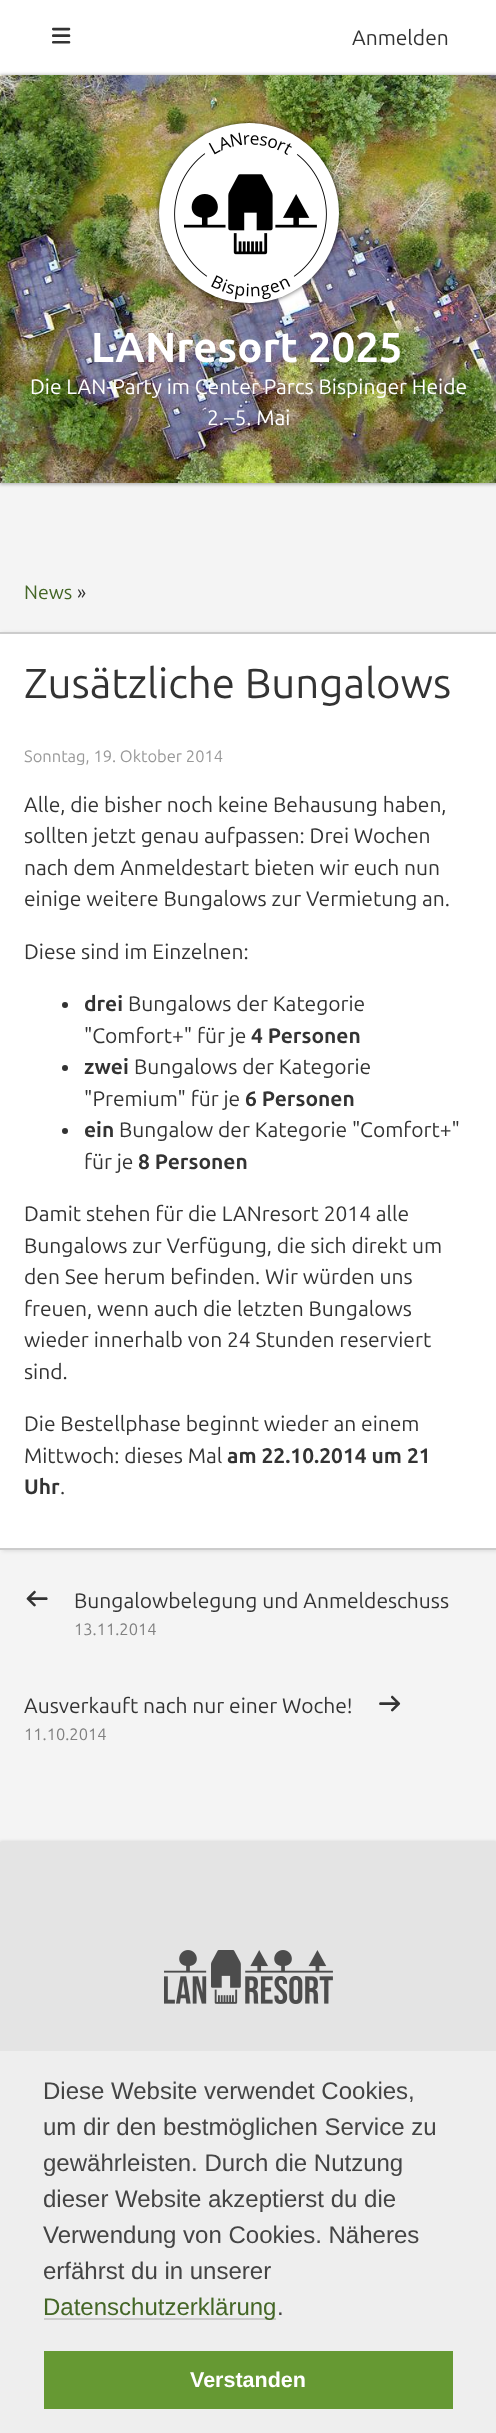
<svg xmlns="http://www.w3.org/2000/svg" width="496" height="2433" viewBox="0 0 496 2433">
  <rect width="100%" height="100%" fill="rgb(244,244,244)"/>
  <rect x="0" y="0" width="496" height="75" fill="rgb(255,255,255)"/>
  <image x="52" y="27" width="19" height="17" href="pic1.png"/>
  <text x="352" y="45" font-family="Ubuntu" font-size="21" fill="rgb(51,51,51)">Anmelden</text>
  <rect x="0" y="77" width="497" height="408" fill="rgba(0,0,0,0.2)" filter="blur(1.5px)"/>
  <rect x="0" y="74" width="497" height="408" fill="rgba(0,0,0,0.2)" filter="blur(1.5px)"/>
  <image x="0" y="75" width="496" height="408" href="pic2.png"/>
  <rect x="159" y="123" width="180" height="180" rx="90" fill="rgba(0,0,0,0.7)" filter="blur(2.5px)"/>
  <circle cx="249" cy="213" r="90" fill="rgb(255,255,255)"/>
  <image x="174" y="132" width="153" height="168" href="pic3.png"/>
  <text x="91" y="362" font-family="Ubuntu" font-size="42" font-weight="bold" fill="rgb(255,255,255)">LANresort 2025</text>
  <g font-family="Ubuntu" font-size="21" fill="rgb(255,255,255)">
    <text x="30" y="394">Die LAN-Party im Center Parcs Bispinger Heide</text>
    <text x="207" y="425">2.–5. Mai</text>
  </g>
  <text x="24" y="599" font-family="Ubuntu" font-size="19.5" fill="rgb(68,102,38)">News</text>
  <text x="77" y="599" font-family="Ubuntu" font-size="19.5" fill="rgb(51,51,51)">»</text>
  <rect x="2" y="633" width="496" height="918" fill="rgba(0,0,0,0.1)" filter="blur(2px)"/>
  <rect x="0" y="634" width="496" height="914" fill="rgb(255,255,255)"/>
  <rect x="0" y="632" width="496" height="2" fill="rgb(204,204,204)"/>
  <rect x="0" y="1548" width="496" height="2" fill="rgb(204,204,204)"/>
  <text x="24" y="698" font-family="Ubuntu" font-size="42" fill="rgb(51,51,51)">Zusätzliche Bungalows</text>
  <text x="24" y="762" font-family="Ubuntu" font-size="16.5" fill="rgb(153,153,153)">Sonntag, 19. Oktober 2014</text>
  <g font-family="Ubuntu" font-size="21" fill="rgb(51,51,51)">
    <text>
      <tspan x="24" y="812">Alle, die bisher noch keine Behausung haben,</tspan>
      <tspan x="24" y="843">sollten jetzt genau aufpassen: Drei Wochen</tspan>
      <tspan x="24" y="875">nach dem Anmeldestart bieten wir euch nun</tspan>
      <tspan x="24" y="906">einige weitere Bungalows zur Vermietung an.</tspan>
    </text>
    <text x="24" y="959">Diese sind im Einzelnen:</text>
  </g>
  <circle cx="65" cy="1005" r="3" fill="rgb(51,51,51)"/>
  <text x="84" y="1011" font-family="Ubuntu" font-size="21" font-weight="bold" fill="rgb(51,51,51)">drei</text>
  <g font-family="Ubuntu" font-size="21" fill="rgb(51,51,51)">
    <text x="128" y="1011">Bungalows der Kategorie</text>
    <text x="84" y="1043">"Comfort+" für je</text>
  </g>
  <text x="251" y="1043" font-family="Ubuntu" font-size="21" font-weight="bold" fill="rgb(51,51,51)">4 Personen</text>
  <circle cx="65" cy="1068" r="3" fill="rgb(51,51,51)"/>
  <text x="84" y="1074" font-family="Ubuntu" font-size="21" font-weight="bold" fill="rgb(51,51,51)">zwei</text>
  <g font-family="Ubuntu" font-size="21" fill="rgb(51,51,51)">
    <text x="134" y="1074">Bungalows der Kategorie</text>
    <text x="84" y="1106">"Premium" für je</text>
  </g>
  <text x="245" y="1106" font-family="Ubuntu" font-size="21" font-weight="bold" fill="rgb(51,51,51)">6 Personen</text>
  <circle cx="65" cy="1131" r="3" fill="rgb(51,51,51)"/>
  <text x="84" y="1137" font-family="Ubuntu" font-size="21" font-weight="bold" fill="rgb(51,51,51)">ein</text>
  <g font-family="Ubuntu" font-size="21" fill="rgb(51,51,51)">
    <text x="119" y="1137">Bungalow der Kategorie "Comfort+"</text>
    <text x="84" y="1169">für je</text>
  </g>
  <text x="138" y="1169" font-family="Ubuntu" font-size="21" font-weight="bold" fill="rgb(51,51,51)">8 Personen</text>
  <g font-family="Ubuntu" font-size="21" fill="rgb(51,51,51)">
    <text>
      <tspan x="24" y="1221">Damit stehen für die LANresort 2014 alle</tspan>
      <tspan x="24" y="1253">Bungalows zur Verfügung, die sich direkt um</tspan>
      <tspan x="24" y="1284">den See herum befinden. Wir würden uns</tspan>
      <tspan x="24" y="1316">freuen, wenn auch die letzten Bungalows</tspan>
      <tspan x="24" y="1347">wieder innerhalb von 24 Stunden reserviert</tspan>
      <tspan x="24" y="1379">sind.</tspan>
    </text>
    <text>
      <tspan x="24" y="1431">Die Bestellphase beginnt wieder an einem</tspan>
      <tspan x="24" y="1463">Mittwoch: dieses Mal</tspan>
    </text>
  </g>
  <g font-family="Ubuntu" font-size="21" font-weight="bold" fill="rgb(51,51,51)">
    <text x="227" y="1463">am 22.10.2014 um 21</text>
    <text x="24" y="1494">Uhr</text>
  </g>
  <text x="60" y="1494" font-family="Ubuntu" font-size="21" fill="rgb(51,51,51)">.</text>
  <image x="26" y="1590" width="22" height="17" href="pic4.png"/>
  <text x="74" y="1608" font-family="Ubuntu" font-size="21" fill="rgb(51,51,51)">Bungalowbelegung und Anmeldeschuss</text>
  <text x="74" y="1635" font-family="Ubuntu" font-size="16.5" fill="rgb(128,128,128)">13.11.2014</text>
  <text x="24" y="1713" font-family="Ubuntu" font-size="21" fill="rgb(51,51,51)">Ausverkauft nach nur einer Woche!</text>
  <text x="24" y="1740" font-family="Ubuntu" font-size="16.5" fill="rgb(128,128,128)">11.10.2014</text>
  <image x="379" y="1695" width="22" height="17" href="pic5.png"/>
  <rect x="0" y="1841" width="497" height="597" fill="rgba(0,0,0,0.1)" filter="blur(1.5px)"/>
  <rect x="0" y="1842" width="496" height="209" fill="rgb(228,228,228)"/>
  <image x="164" y="1950" width="169" height="54" href="pic6.png"/>
  <rect x="0" y="2051" width="496" height="382" fill="rgb(238,238,238)"/>
  <g font-family="Liberation Sans" font-size="24" fill="rgb(68,68,68)">
    <text>
      <tspan x="43" y="2099">Diese Website verwendet Cookies,</tspan>
      <tspan x="43" y="2135">um dir den bestmöglichen Service zu</tspan>
      <tspan x="43" y="2171">gewährleisten. Durch die Nutzung</tspan>
      <tspan x="43" y="2207">dieser Website akzeptierst du die</tspan>
      <tspan x="43" y="2243">Verwendung von Cookies. Näheres</tspan>
      <tspan x="43" y="2279">erfährst du in unserer</tspan>
    </text>
  </g>
  <rect x="44" y="2318" width="232" height="2" fill="rgb(204,204,204)"/>
  <text x="43" y="2315" font-family="Liberation Sans" font-size="24" fill="rgb(68,102,38)">Datenschutzerklärung</text>
  <text x="277" y="2315" font-family="Liberation Sans" font-size="24" fill="rgb(68,68,68)">.</text>
  <rect x="44" y="2351" width="409" height="58" fill="rgb(102,153,51)"/>
  <text x="190" y="2387" font-family="Liberation Sans" font-size="21.5" font-weight="bold" fill="rgb(255,255,255)">Verstanden</text>
</svg>
